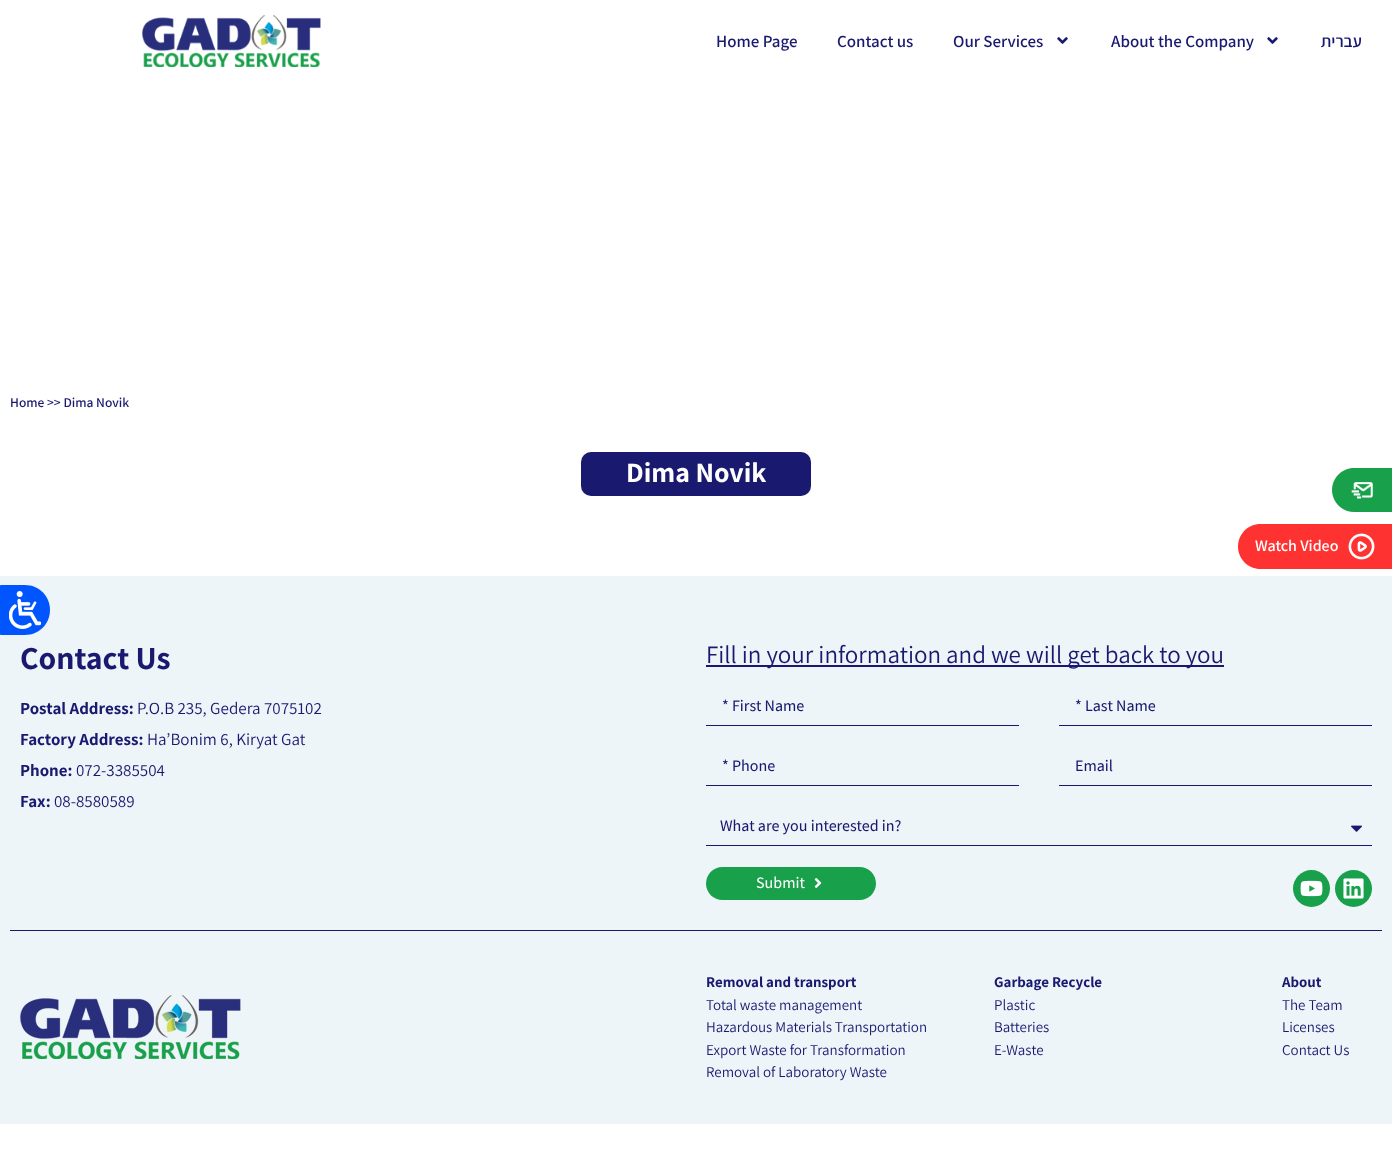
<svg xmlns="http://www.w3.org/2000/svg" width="1392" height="1169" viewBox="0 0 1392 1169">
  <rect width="100%" height="100%" fill="rgb(255,255,255)"/>
  <text x="10" y="407" font-family="Assistant" font-size="13.5" font-weight="600" fill="rgb(25,25,112)">Home &gt;&gt; Dima Novik</text>
  <rect x="581" y="452" width="230" height="44" rx="10" fill="rgb(25,25,112)"/>
  <text x="626" y="482" font-family="Assistant" font-size="28" font-weight="bold" fill="rgb(255,255,255)">Dima Novik</text>
  <image x="142" y="15" width="179" height="52" href="pic1.png"/>
  <g font-family="Assistant" font-size="17" font-weight="600" fill="rgb(25,25,112)">
    <text x="716" y="47">Home Page</text>
    <text x="837" y="47">Contact us</text>
    <text x="953" y="47">Our Services</text>
  </g>
  <image x="1057" y="37" width="11" height="7" href="pic2.png"/>
  <text x="1111" y="47" font-family="Assistant" font-size="17" font-weight="600" fill="rgb(25,25,112)">About the Company</text>
  <image x="1267" y="37" width="11" height="7" href="pic2.png"/>
  <text x="1362" y="47" font-family="Assistant" font-size="17" font-weight="600" direction="rtl" fill="rgb(25,25,112)">עברית</text>
  <path d="M1354 468H1392V512H1354C1342 512 1332 502 1332 490C1332 478 1342 468 1354 468Z" fill="rgb(25,160,74)"/>
  <image x="1351" y="482" width="22" height="17" href="pic3.png"/>
  <path d="M1260.5 524H1392V569H1260.5C1248 569 1238 559 1238 546.5C1238 534 1248 524 1260.5 524Z" fill="rgb(255,50,50)"/>
  <text x="1255" y="551" font-family="Assistant" font-size="16" font-weight="600" fill="rgb(255,255,255)">Watch Video</text>
  <image x="1348" y="533" width="27" height="27" href="pic4.png"/>
  <rect x="0" y="576" width="1392" height="548" fill="rgb(237,245,248)"/>
  <path d="M1 585H25C39 585 50 596 50 610C50 624 39 635 25 635H1C.5 635 0 634.5 0 634V586C0 585.5 .5 585 1 585Z" fill="rgb(0,85,255)"/>
  <image x="9" y="591" width="32" height="38" href="pic5.png"/>
  <text x="20" y="669" font-family="Assistant" font-size="32" font-weight="bold" fill="rgb(25,25,112)">Contact Us</text>
  <text x="20" y="714" font-family="Assistant" font-size="17" font-weight="bold" fill="rgb(25,25,112)">Postal Address:</text>
  <text x="137" y="714" font-family="Assistant" font-size="17" fill="rgb(25,25,112)">P.O.B 235, Gedera 7075102</text>
  <text x="20" y="745" font-family="Assistant" font-size="17" font-weight="bold" fill="rgb(25,25,112)">Factory Address:</text>
  <text x="147" y="745" font-family="Assistant" font-size="17" fill="rgb(25,25,112)">Ha’Bonim 6, Kiryat Gat</text>
  <text x="20" y="776" font-family="Assistant" font-size="17" font-weight="bold" fill="rgb(25,25,112)">Phone:</text>
  <text x="76" y="776" font-family="Assistant" font-size="17" fill="rgb(25,25,112)">072-3385504</text>
  <text x="20" y="807" font-family="Assistant" font-size="17" font-weight="bold" fill="rgb(25,25,112)">Fax:</text>
  <text x="54" y="807" font-family="Assistant" font-size="17" fill="rgb(25,25,112)">08-8580589</text>
  <rect x="706" y="665" width="518" height="2" fill="rgb(25,25,112)"/>
  <text x="706" y="663" font-family="Assistant" font-size="25" fill="rgb(25,25,112)">Fill in your information and we will get back to you</text>
  <rect x="706" y="725" width="313" height="1" fill="rgb(25,25,112)"/>
  <text x="722" y="711" font-family="Assistant" font-size="16" font-weight="500" fill="rgb(25,25,112)">* First Name</text>
  <rect x="1059" y="725" width="313" height="1" fill="rgb(25,25,112)"/>
  <text x="1075" y="711" font-family="Assistant" font-size="16" font-weight="500" fill="rgb(25,25,112)">* Last Name</text>
  <rect x="706" y="785" width="313" height="1" fill="rgb(25,25,112)"/>
  <text x="722" y="771" font-family="Assistant" font-size="16" font-weight="500" fill="rgb(25,25,112)">* Phone</text>
  <rect x="1059" y="785" width="313" height="1" fill="rgb(25,25,112)"/>
  <text x="1075" y="771" font-family="Assistant" font-size="16" font-weight="500" fill="rgb(25,25,112)">Email</text>
  <rect x="706" y="845" width="666" height="1" fill="rgb(25,25,112)"/>
  <text x="720" y="831" font-family="Assistant" font-size="16" font-weight="500" fill="rgb(25,25,112)">What are you interested in?</text>
  <image x="1351" y="825" width="11" height="7" href="pic6.png"/>
  <rect x="706" y="867" width="170" height="33" rx="16.5" fill="rgb(25,160,74)"/>
  <text x="756" y="888" font-family="Assistant" font-size="16" font-weight="500" fill="rgb(255,255,255)">Submit</text>
  <image x="814" y="878" width="8" height="10" href="pic7.png"/>
  <circle cx="1311.5" cy="888.5" r="18.5" fill="rgb(25,160,74)"/>
  <image x="1300" y="880" width="23" height="17" href="pic8.png"/>
  <circle cx="1353.5" cy="888.5" r="18.5" fill="rgb(25,160,74)"/>
  <image x="1343" y="878" width="21" height="21" href="pic9.png"/>
  <rect x="10" y="930" width="1372" height="1" fill="rgb(25,25,112)"/>
  <image x="20" y="995" width="221" height="64" href="pic10.png"/>
  <text x="706" y="987" font-family="Assistant" font-size="15" font-weight="bold" fill="rgb(25,25,112)">Removal and transport</text>
  <g font-family="Assistant" font-size="15" fill="rgb(25,25,112)">
    <text>
      <tspan x="706" y="1010">Total waste management</tspan>
      <tspan x="706" y="1032">Hazardous Materials Transportation</tspan>
      <tspan x="706" y="1055">Export Waste for Transformation</tspan>
      <tspan x="706" y="1077">Removal of Laboratory Waste</tspan>
    </text>
  </g>
  <text x="994" y="987" font-family="Assistant" font-size="15" font-weight="bold" fill="rgb(25,25,112)">Garbage Recycle</text>
  <g font-family="Assistant" font-size="15" fill="rgb(25,25,112)">
    <text>
      <tspan x="994" y="1010">Plastic</tspan>
      <tspan x="994" y="1032">Batteries</tspan>
      <tspan x="994" y="1055">E-Waste</tspan>
    </text>
  </g>
  <text x="1282" y="987" font-family="Assistant" font-size="15" font-weight="bold" fill="rgb(25,25,112)">About</text>
  <g font-family="Assistant" font-size="15" fill="rgb(25,25,112)">
    <text>
      <tspan x="1282" y="1010">The Team</tspan>
      <tspan x="1282" y="1032">Licenses</tspan>
      <tspan x="1282" y="1055">Contact Us</tspan>
    </text>
  </g>
</svg>
